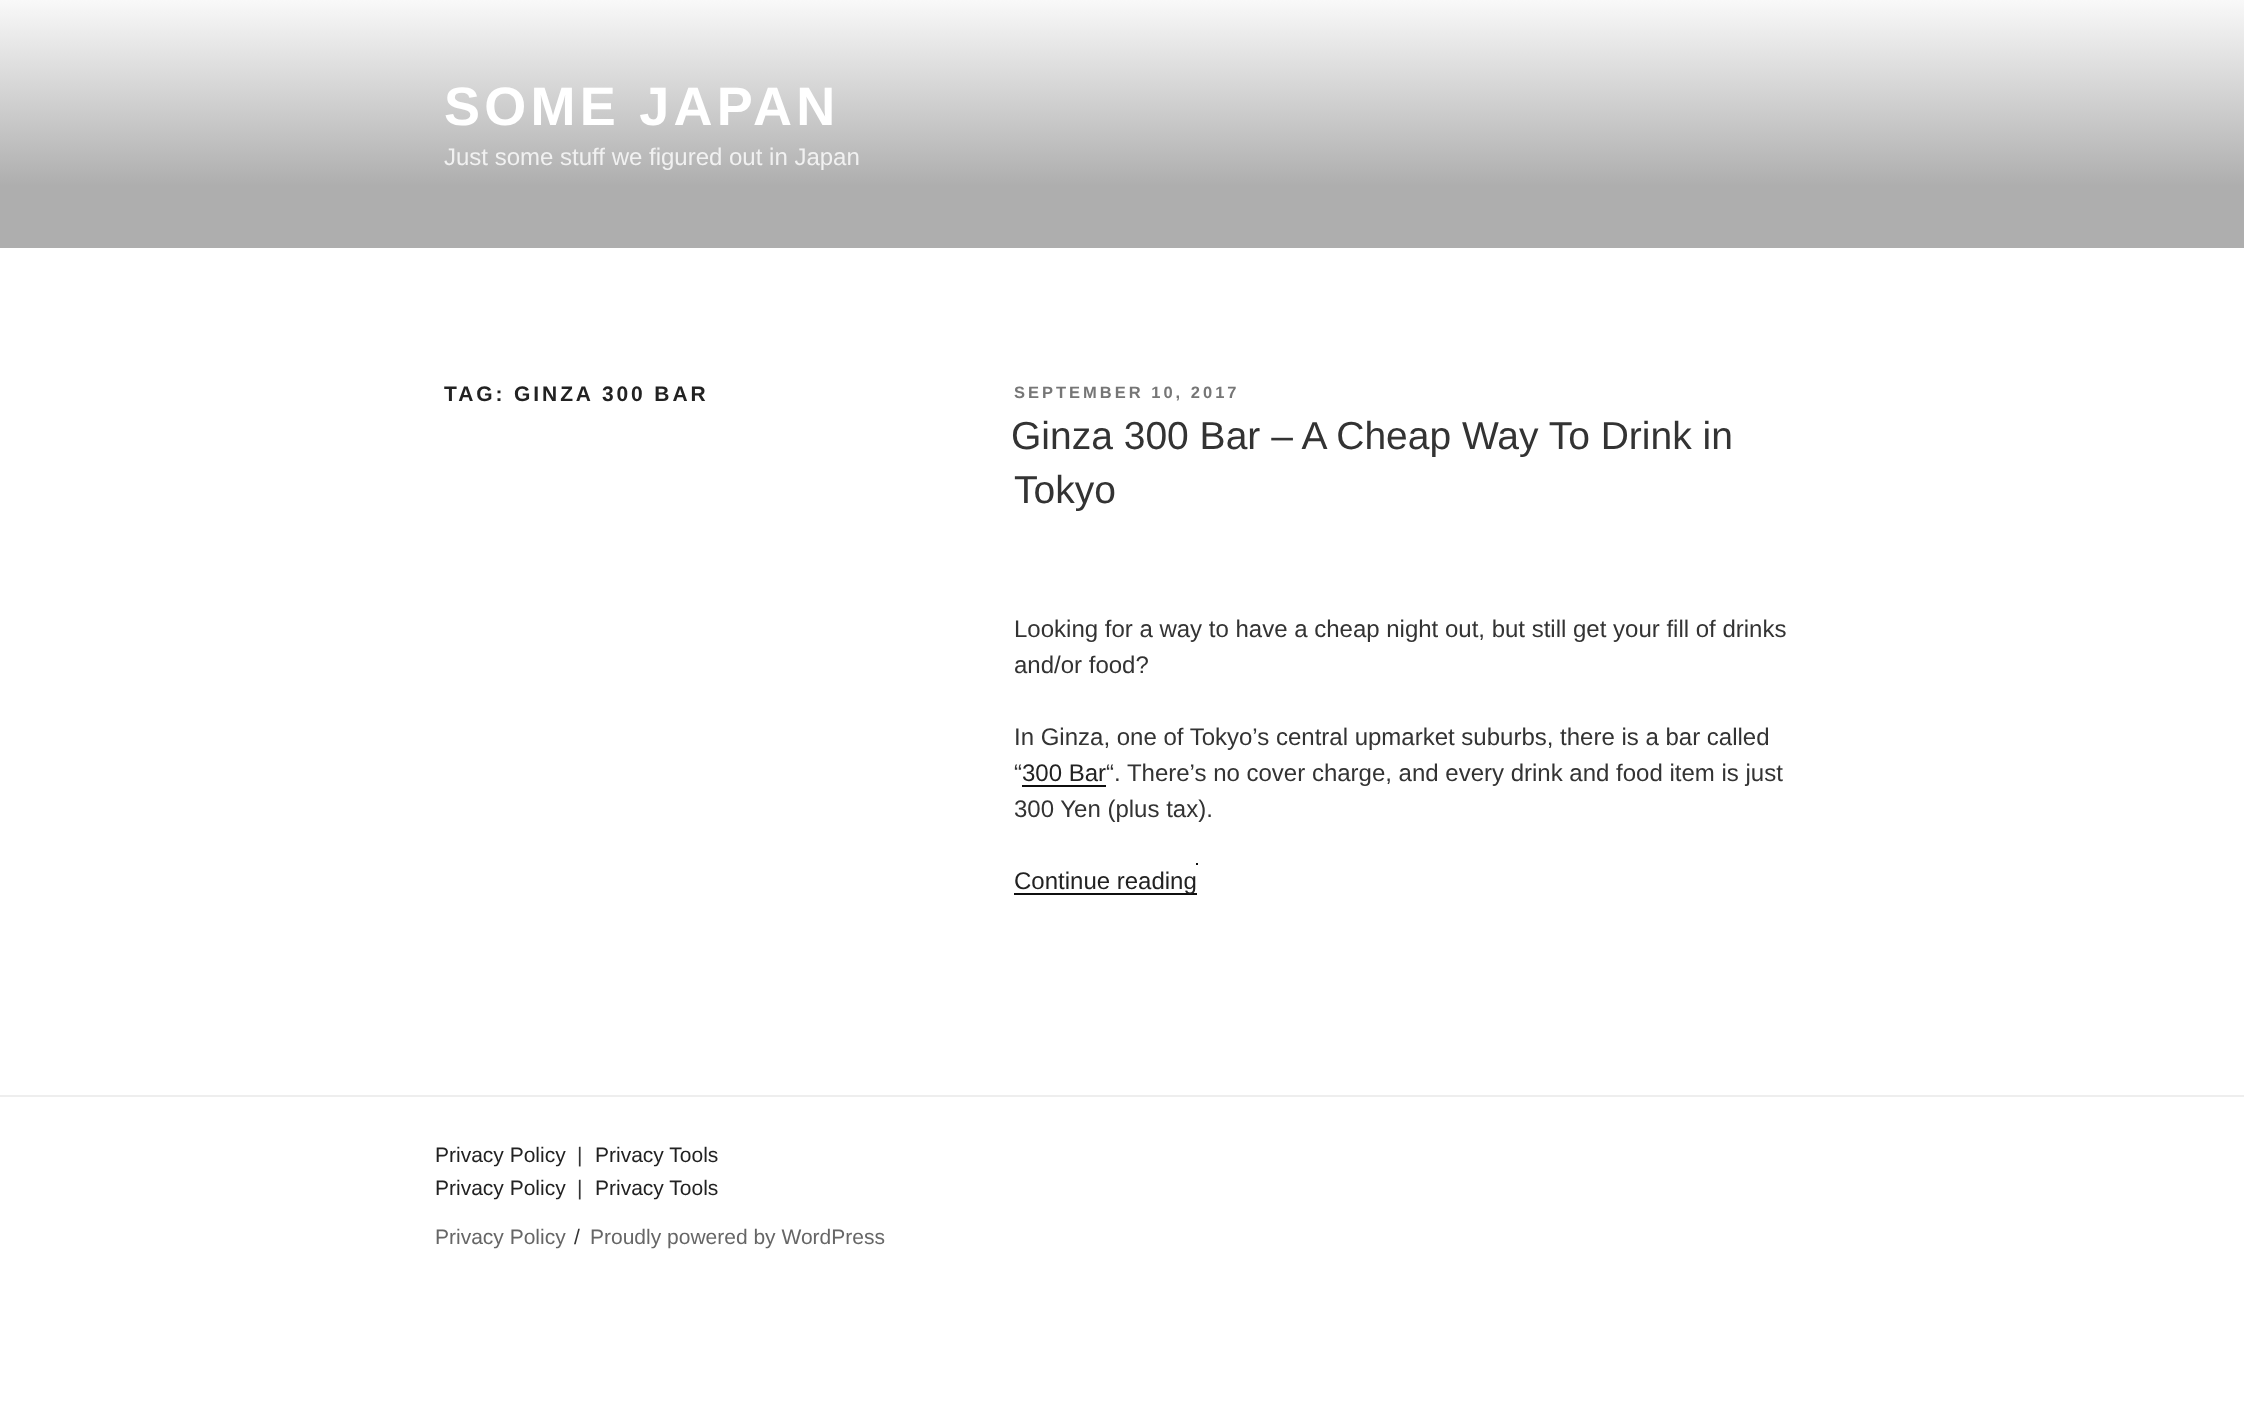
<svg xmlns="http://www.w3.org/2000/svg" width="2244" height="1418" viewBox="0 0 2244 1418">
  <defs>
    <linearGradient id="g1" gradientUnits="userSpaceOnUse" x1="1122" y1="0" x2="1122" y2="248"><stop offset="0" stop-color="rgb(249,249,249)"/><stop offset="0.75" stop-color="rgb(174,174,174)"/><stop offset="1" stop-color="rgb(174,174,174)"/></linearGradient>
  </defs>
  <rect width="100%" height="100%" fill="rgb(255,255,255)"/>
  <rect x="0" y="0" width="2244" height="248" fill="url(#g1)"/>
  <text x="444" y="125" font-family="Liberation Sans" font-size="54" font-weight="bold" letter-spacing="4.25" fill="rgb(255,255,255)">SOME JAPAN</text>
  <text x="444" y="165" font-family="Liberation Sans" font-size="24" fill="rgb(241,241,241)">Just some stuff we figured out in Japan</text>
  <text x="444" y="401" font-family="Liberation Sans" font-size="21" font-weight="bold" letter-spacing="2.9" fill="rgb(34,34,34)">TAG: GINZA 300 BAR</text>
  <text x="1014" y="398" font-family="Liberation Sans" font-size="16.5" font-weight="bold" letter-spacing="3" fill="rgb(118,118,118)">SEPTEMBER 10, 2017</text>
  <g font-family="Liberation Sans" font-size="39" fill="rgb(51,51,51)">
    <text x="1011" y="449">Ginza 300 Bar – A Cheap Way To Drink in</text>
    <text x="1014" y="503">Tokyo</text>
  </g>
  <g font-family="Liberation Sans" font-size="24" fill="rgb(51,51,51)">
    <text>
      <tspan x="1014" y="637">Looking for a way to have a cheap night out, but still get your fill of drinks</tspan>
      <tspan x="1014" y="673">and/or food?</tspan>
    </text>
    <text>
      <tspan x="1014" y="745">In Ginza, one of Tokyo’s central upmarket suburbs, there is a bar called</tspan>
      <tspan x="1014" y="781">“</tspan>
    </text>
  </g>
  <text x="1022" y="781" font-family="Liberation Sans" font-size="24" fill="rgb(34,34,34)">300 Bar</text>
  <rect x="1022" y="785" width="84" height="2" fill="rgb(15,15,15)"/>
  <g font-family="Liberation Sans" font-size="24" fill="rgb(51,51,51)">
    <text x="1106" y="781">“. There’s no cover charge, and every drink and food item is just</text>
    <text x="1014" y="817">300 Yen (plus tax).</text>
  </g>
  <rect x="1014" y="893" width="183" height="2" fill="rgb(15,15,15)"/>
  <text x="1014" y="889" font-family="Liberation Sans" font-size="24" fill="rgb(34,34,34)">Continue reading</text>
  <rect x="1196" y="863" width="2" height="2" fill="rgb(15,15,15)"/>
  <rect x="0" y="1095" width="2244" height="2" fill="rgb(238,238,238)"/>
  <text x="435" y="1162" font-family="Liberation Sans" font-size="21" fill="rgb(34,34,34)">Privacy Policy</text>
  <text x="577" y="1162" font-family="Liberation Sans" font-size="21" fill="rgb(51,51,51)">|</text>
  <g font-family="Liberation Sans" font-size="21" fill="rgb(34,34,34)">
    <text x="595" y="1162">Privacy Tools</text>
    <text x="435" y="1195">Privacy Policy</text>
  </g>
  <text x="577" y="1195" font-family="Liberation Sans" font-size="21" fill="rgb(51,51,51)">|</text>
  <text x="595" y="1195" font-family="Liberation Sans" font-size="21" fill="rgb(34,34,34)">Privacy Tools</text>
  <text x="435" y="1244" font-family="Liberation Sans" font-size="21" fill="rgb(102,102,102)">Privacy Policy</text>
  <text x="574" y="1244" font-family="Liberation Sans" font-size="21" fill="rgb(51,51,51)">/</text>
  <text x="590" y="1244" font-family="Liberation Sans" font-size="21" fill="rgb(102,102,102)">Proudly powered by WordPress</text>
</svg>
